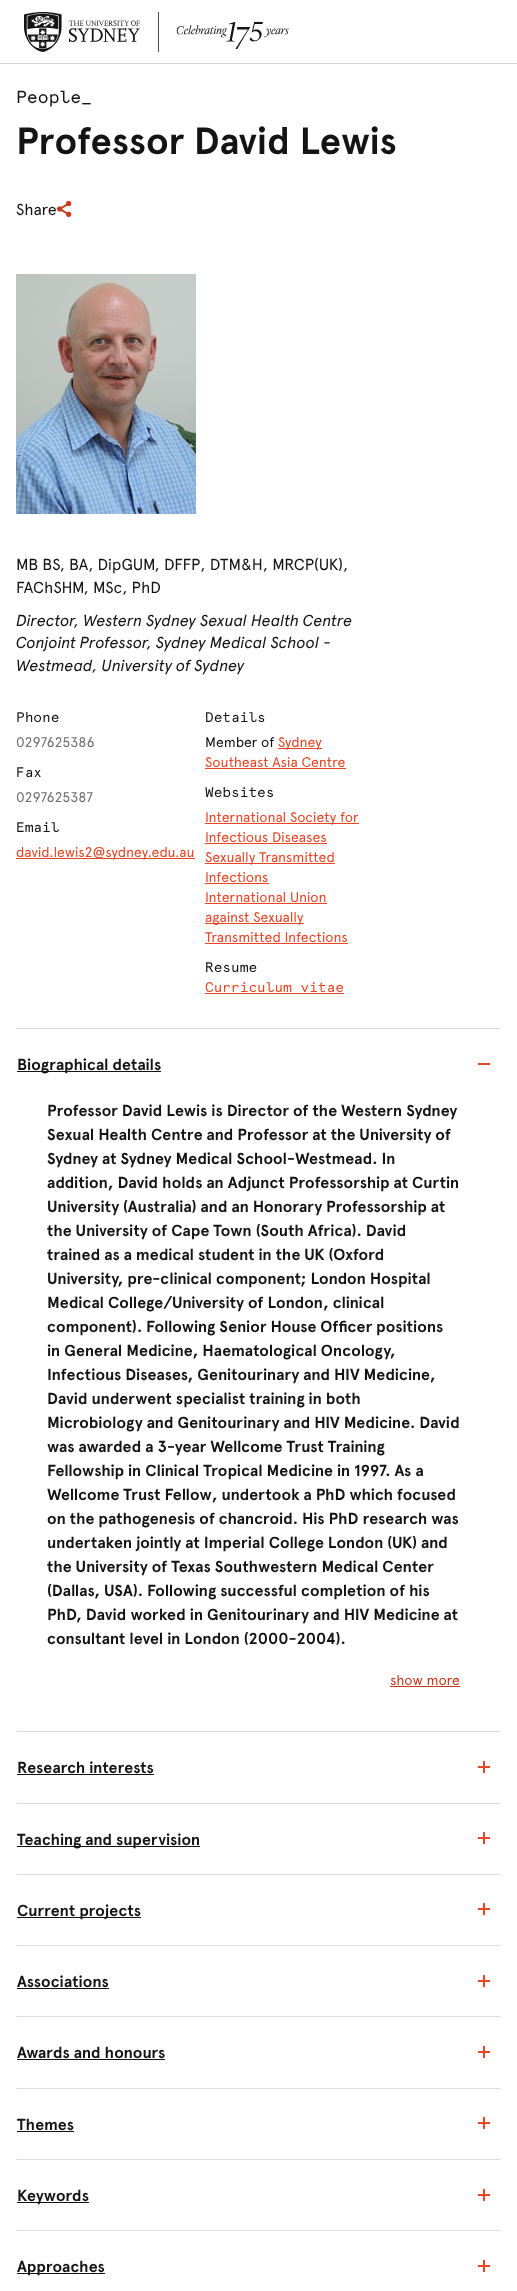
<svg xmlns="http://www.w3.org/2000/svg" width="517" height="2291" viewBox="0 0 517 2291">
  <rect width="100%" height="100%" fill="rgb(255,255,255)"/>
  <rect x="0" y="63" width="517" height="1" fill="rgb(210,210,210)"/>
  <image x="24" y="12" width="265" height="40" href="pic1.png"/>
  <text x="16" y="103" font-family="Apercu" font-size="17.5" font-weight="200" fill="rgb(20,20,20)">People_</text>
  <text x="16" y="154" font-family="Apercu" font-size="38" font-weight="bold" fill="rgb(20,20,20)">Professor David Lewis</text>
  <text x="16" y="215" font-family="Apercu" font-size="16" fill="rgb(20,20,20)">Share</text>
  <image x="57" y="200" width="15" height="17" href="pic2.png"/>
  <image x="16" y="274" width="180" height="240" href="pic3.png"/>
  <g font-family="Apercu" font-size="16" fill="rgb(20,20,20)">
    <text>
      <tspan x="16" y="570">MB BS, BA, DipGUM, DFFP, DTM&amp;H, MRCP(UK),</tspan>
      <tspan x="16" y="593">FAChSHM, MSc, PhD</tspan>
    </text>
  </g>
  <g font-family="Apercu" font-size="16" font-style="italic" fill="rgb(20,20,20)">
    <text>
      <tspan x="16" y="626">Director, Western Sydney Sexual Health Centre</tspan>
      <tspan x="16" y="648">Conjoint Professor, Sydney Medical School -</tspan>
      <tspan x="16" y="671">Westmead, University of Sydney</tspan>
    </text>
  </g>
  <text x="16" y="722" font-family="Apercu" font-size="14" font-weight="200" fill="rgb(20,20,20)">Phone</text>
  <text x="16" y="747" font-family="Apercu" font-size="14" fill="rgb(110,110,110)">0297625386</text>
  <text x="16" y="777" font-family="Apercu" font-size="14" font-weight="200" fill="rgb(20,20,20)">Fax</text>
  <text x="16" y="802" font-family="Apercu" font-size="14" fill="rgb(110,110,110)">0297625387</text>
  <text x="16" y="832" font-family="Apercu" font-size="14" font-weight="200" fill="rgb(20,20,20)">Email</text>
  <rect x="16" y="858" width="179" height="1" fill="rgb(230,70,38)"/>
  <text x="16" y="857" font-family="Apercu" font-size="14" fill="rgb(230,70,38)">david.lewis2@sydney.edu.au</text>
  <text x="205" y="722" font-family="Apercu" font-size="14" font-weight="200" fill="rgb(20,20,20)">Details</text>
  <text x="205" y="747" font-family="Apercu" font-size="14" fill="rgb(20,20,20)">Member of</text>
  <rect x="278" y="748" width="44" height="1" fill="rgb(230,70,38)"/>
  <g font-family="Apercu" font-size="14" fill="rgb(230,70,38)">
    <text x="278" y="747">Sydney</text>
    <text x="205" y="767">Southeast Asia Centre</text>
  </g>
  <rect x="205" y="768" width="141" height="1" fill="rgb(230,70,38)"/>
  <text x="205" y="797" font-family="Apercu" font-size="14" font-weight="200" fill="rgb(20,20,20)">Websites</text>
  <rect x="205" y="823" width="154" height="1" fill="rgb(230,70,38)"/>
  <g font-family="Apercu" font-size="14" fill="rgb(230,70,38)">
    <text>
      <tspan x="205" y="822">International Society for</tspan>
      <tspan x="205" y="842">Infectious Diseases</tspan>
    </text>
  </g>
  <rect x="205" y="843" width="122" height="1" fill="rgb(230,70,38)"/>
  <rect x="205" y="863" width="130" height="1" fill="rgb(230,70,38)"/>
  <g font-family="Apercu" font-size="14" fill="rgb(230,70,38)">
    <text>
      <tspan x="205" y="862">Sexually Transmitted</tspan>
      <tspan x="205" y="882">Infections</tspan>
    </text>
  </g>
  <rect x="205" y="883" width="64" height="1" fill="rgb(230,70,38)"/>
  <text x="205" y="902" font-family="Apercu" font-size="14" fill="rgb(230,70,38)">International Union</text>
  <rect x="205" y="903" width="122" height="1" fill="rgb(230,70,38)"/>
  <rect x="205" y="923" width="99" height="1" fill="rgb(230,70,38)"/>
  <g font-family="Apercu" font-size="14" fill="rgb(230,70,38)">
    <text>
      <tspan x="205" y="922">against Sexually</tspan>
      <tspan x="205" y="942">Transmitted Infections</tspan>
    </text>
  </g>
  <rect x="205" y="943" width="143" height="1" fill="rgb(230,70,38)"/>
  <text x="205" y="972" font-family="Apercu" font-size="14" font-weight="200" fill="rgb(20,20,20)">Resume</text>
  <text x="205" y="992" font-family="Apercu" font-size="14" font-weight="200" fill="rgb(230,70,38)">Curriculum vitae</text>
  <rect x="205" y="993" width="139" height="1" fill="rgb(230,70,38)"/>
  <rect x="16" y="1028" width="485" height="1" fill="rgb(220,220,220)"/>
  <path d="M501 1732H16L17 1731H500Z" fill="rgb(220,220,220)"/>
  <rect x="17" y="1071" width="144" height="1" fill="rgb(20,20,20)"/>
  <text x="17" y="1070" font-family="Apercu" font-size="16" font-weight="bold" fill="rgb(20,20,20)">Biographical details</text>
  <rect x="478" y="1063" width="12" height="2" fill="rgb(230,70,38)"/>
  <g font-family="Apercu" font-size="16" font-weight="bold" fill="rgb(20,20,20)">
    <text>
      <tspan x="47" y="1116">Professor David Lewis is Director of the Western Sydney</tspan>
      <tspan x="47" y="1140">Sexual Health Centre and Professor at the University of</tspan>
      <tspan x="47" y="1164">Sydney at Sydney Medical School-Westmead. In</tspan>
      <tspan x="47" y="1188">addition, David holds an Adjunct Professorship at Curtin</tspan>
      <tspan x="47" y="1212">University (Australia) and an Honorary Professorship at</tspan>
      <tspan x="47" y="1236">the University of Cape Town (South Africa). David</tspan>
      <tspan x="47" y="1260">trained as a medical student in the UK (Oxford</tspan>
      <tspan x="47" y="1284">University, pre-clinical component; London Hospital</tspan>
      <tspan x="47" y="1308">Medical College/University of London, clinical</tspan>
      <tspan x="47" y="1332">component). Following Senior House Officer positions</tspan>
      <tspan x="47" y="1356">in General Medicine, Haematological Oncology,</tspan>
      <tspan x="47" y="1380">Infectious Diseases, Genitourinary and HIV Medicine,</tspan>
      <tspan x="47" y="1404">David underwent specialist training in both</tspan>
      <tspan x="47" y="1428">Microbiology and Genitourinary and HIV Medicine. David</tspan>
      <tspan x="47" y="1452">was awarded a 3-year Wellcome Trust Training</tspan>
      <tspan x="47" y="1476">Fellowship in Clinical Tropical Medicine in 1997. As a</tspan>
      <tspan x="47" y="1500">Wellcome Trust Fellow, undertook a PhD which focused</tspan>
      <tspan x="47" y="1524">on the pathogenesis of chancroid. His PhD research was</tspan>
      <tspan x="47" y="1548">undertaken jointly at Imperial College London (UK) and</tspan>
      <tspan x="47" y="1572">the University of Texas Southwestern Medical Center</tspan>
      <tspan x="47" y="1596">(Dallas, USA). Following successful completion of his</tspan>
      <tspan x="47" y="1620">PhD, David worked in Genitourinary and HIV Medicine at</tspan>
      <tspan x="47" y="1644">consultant level in London (2000-2004).</tspan>
    </text>
  </g>
  <text x="390" y="1685" font-family="Apercu" font-size="14" fill="rgb(198,58,30)">show more</text>
  <rect x="390" y="1686" width="70" height="1" fill="rgb(198,58,30)"/>
  <path d="M501 1804H16L17 1803H500Z" fill="rgb(220,220,220)"/>
  <text x="17" y="1773" font-family="Apercu" font-size="16" font-weight="bold" fill="rgb(20,20,20)">Research interests</text>
  <rect x="17" y="1774" width="137" height="1" fill="rgb(20,20,20)"/>
  <image x="478" y="1761" width="12" height="13" href="pic4.png"/>
  <path d="M501 1875H16L17 1874H500Z" fill="rgb(220,220,220)"/>
  <rect x="17" y="1846" width="183" height="1" fill="rgb(20,20,20)"/>
  <text x="17" y="1845" font-family="Apercu" font-size="16" font-weight="bold" fill="rgb(20,20,20)">Teaching and supervision</text>
  <image x="478" y="1832" width="12" height="13" href="pic4.png"/>
  <path d="M501 1946H16L17 1945H500Z" fill="rgb(220,220,220)"/>
  <rect x="17" y="1917" width="124" height="1" fill="rgb(20,20,20)"/>
  <text x="17" y="1916" font-family="Apercu" font-size="16" font-weight="bold" fill="rgb(20,20,20)">Current projects</text>
  <image x="478" y="1903" width="12" height="13" href="pic4.png"/>
  <path d="M501 2017H16L17 2016H500Z" fill="rgb(220,220,220)"/>
  <text x="17" y="1987" font-family="Apercu" font-size="16" font-weight="bold" fill="rgb(20,20,20)">Associations</text>
  <rect x="17" y="1988" width="92" height="1" fill="rgb(20,20,20)"/>
  <image x="478" y="1975" width="12" height="13" href="pic4.png"/>
  <path d="M501 2089H16L17 2088H500Z" fill="rgb(220,220,220)"/>
  <text x="17" y="2058" font-family="Apercu" font-size="16" font-weight="bold" fill="rgb(20,20,20)">Awards and honours</text>
  <rect x="17" y="2059" width="148" height="1" fill="rgb(20,20,20)"/>
  <image x="478" y="2046" width="12" height="13" href="pic4.png"/>
  <path d="M501 2160H16L17 2159H500Z" fill="rgb(220,220,220)"/>
  <text x="17" y="2130" font-family="Apercu" font-size="16" font-weight="bold" fill="rgb(20,20,20)">Themes</text>
  <rect x="17" y="2131" width="57" height="1" fill="rgb(20,20,20)"/>
  <image x="478" y="2117" width="12" height="13" href="pic4.png"/>
  <path d="M501 2231H16L17 2230H500Z" fill="rgb(220,220,220)"/>
  <rect x="17" y="2202" width="72" height="1" fill="rgb(20,20,20)"/>
  <text x="17" y="2201" font-family="Apercu" font-size="16" font-weight="bold" fill="rgb(20,20,20)">Keywords</text>
  <image x="478" y="2189" width="12" height="13" href="pic4.png"/>
  <rect x="17" y="2273" width="88" height="1" fill="rgb(20,20,20)"/>
  <text x="17" y="2272" font-family="Apercu" font-size="16" font-weight="bold" fill="rgb(20,20,20)">Approaches</text>
  <image x="478" y="2260" width="12" height="13" href="pic4.png"/>
</svg>
